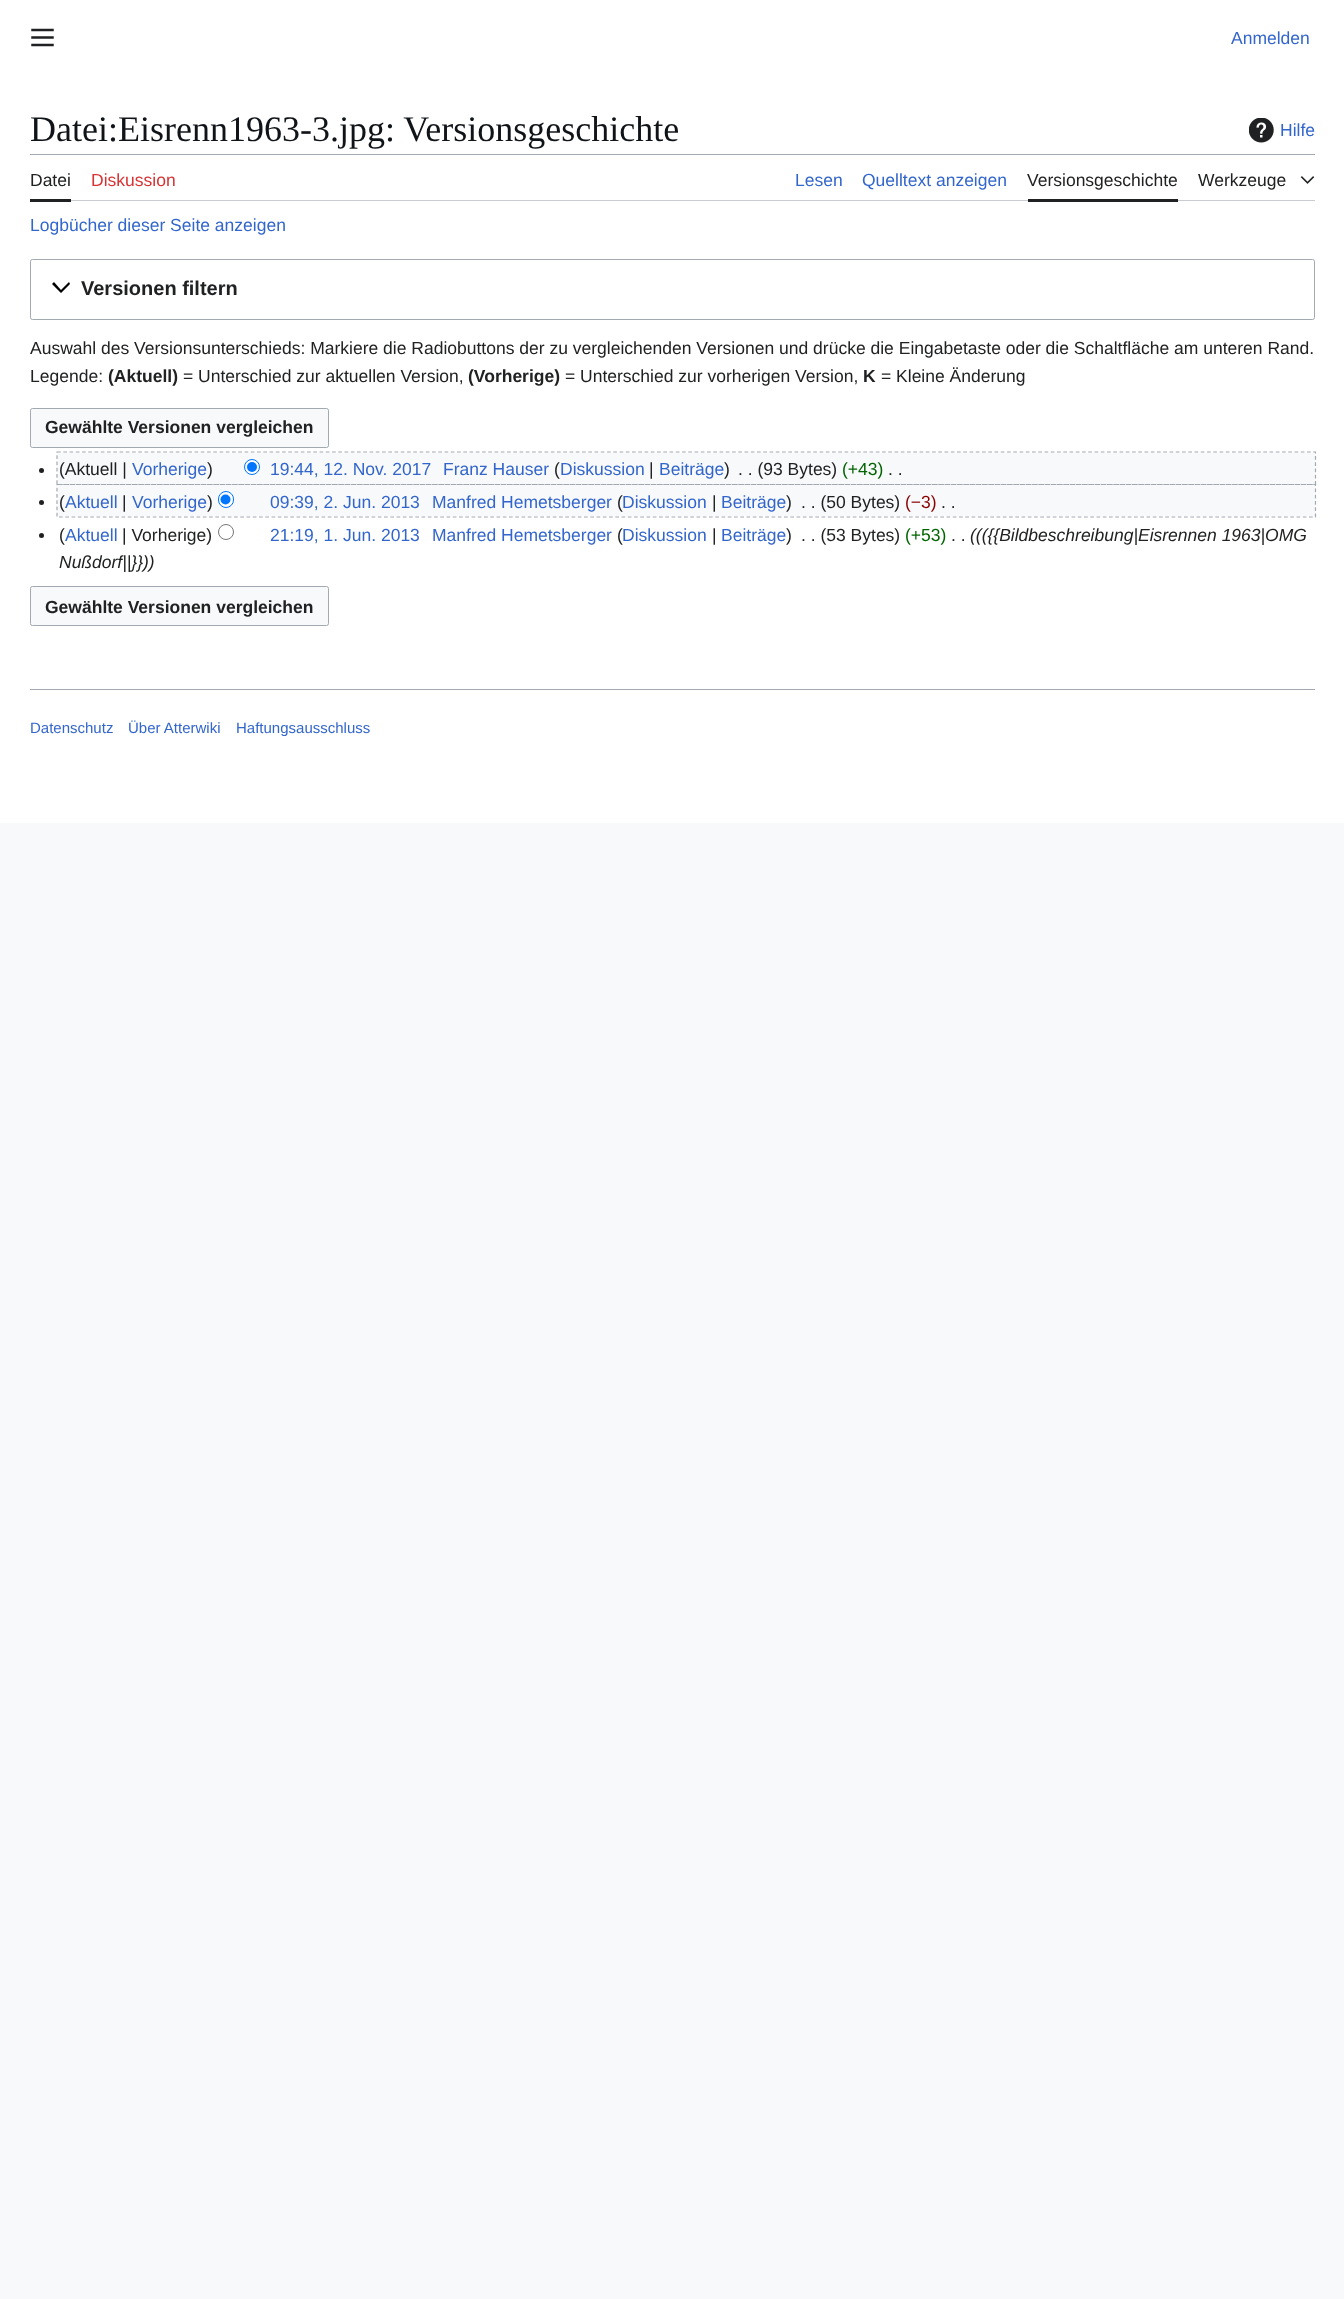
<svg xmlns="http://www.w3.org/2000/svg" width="1344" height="2299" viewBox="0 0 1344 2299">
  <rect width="100%" height="100%" fill="rgb(248,249,250)"/>
  <rect x="0" y="0" width="1344" height="823" fill="rgb(255,255,255)"/>
  <image x="31" y="28" width="23" height="19" href="pic1.png"/>
  <text x="1231" y="44" font-family="Liberation Sans" font-size="17.5" fill="rgb(51,102,204)">Anmelden</text>
  <text x="30" y="141" font-family="Liberation Serif" font-size="36" fill="rgb(16,20,24)">Datei:Eisrenn1963-3.jpg: Versionsgeschichte</text>
  <image x="1249" y="118" width="25" height="25" href="pic2.png"/>
  <text x="1280" y="136" font-family="Liberation Sans" font-size="17.5" fill="rgb(51,102,204)">Hilfe</text>
  <rect x="30" y="154" width="1285" height="1" fill="rgb(162,169,177)"/>
  <rect x="71" y="200" width="1244" height="1" fill="rgb(200,204,209)"/>
  <rect x="30" y="199" width="41" height="3" fill="rgb(32,33,34)"/>
  <text x="30" y="186" font-family="Liberation Sans" font-size="17.5" fill="rgb(32,33,34)">Datei</text>
  <text x="91" y="186" font-family="Liberation Sans" font-size="17.5" fill="rgb(215,51,51)">Diskussion</text>
  <g font-family="Liberation Sans" font-size="17.5" fill="rgb(51,102,204)">
    <text x="795" y="186">Lesen</text>
    <text x="862" y="186">Quelltext anzeigen</text>
  </g>
  <rect x="1028" y="199" width="150" height="3" fill="rgb(32,33,34)"/>
  <g font-family="Liberation Sans" font-size="17.5" fill="rgb(32,33,34)">
    <text x="1027" y="186">Versionsgeschichte</text>
    <text x="1198" y="186">Werkzeuge</text>
  </g>
  <image x="1300" y="176" width="15" height="8" href="pic3.png"/>
  <text x="30" y="231" font-family="Liberation Sans" font-size="17.5" fill="rgb(51,102,204)">Logbücher dieser Seite anzeigen</text>
  <rect x="30.5" y="259.5" width="1284" height="60" rx="2" fill="none" stroke="rgb(162,169,177)"/>
  <path d="M69 282L61 290L54 282L52 284L61 293L70 284Z" fill="rgb(0,0,0)"/>
  <text x="81" y="295" font-family="Liberation Sans" font-size="20" font-weight="bold" fill="rgb(32,33,34)">Versionen filtern</text>
  <g font-family="Liberation Sans" font-size="17.5" fill="rgb(32,33,34)">
    <text>
      <tspan x="30" y="354">Auswahl des Versionsunterschieds: Markiere die Radiobuttons der zu vergleichenden Versionen und drücke die Eingabetaste oder die Schaltfläche am unteren Rand.</tspan>
      <tspan x="30" y="382">Legende:</tspan>
    </text>
  </g>
  <text x="108" y="382" font-family="Liberation Sans" font-size="17.5" font-weight="bold" fill="rgb(32,33,34)">(Aktuell)</text>
  <text x="183" y="382" font-family="Liberation Sans" font-size="17.5" fill="rgb(32,33,34)">= Unterschied zur aktuellen Version,</text>
  <text x="468" y="382" font-family="Liberation Sans" font-size="17.5" font-weight="bold" fill="rgb(32,33,34)">(Vorherige)</text>
  <text x="565" y="382" font-family="Liberation Sans" font-size="17.5" fill="rgb(32,33,34)">= Unterschied zur vorherigen Version,</text>
  <text x="863" y="382" font-family="Liberation Sans" font-size="17.5" font-weight="bold" fill="rgb(32,33,34)">K</text>
  <text x="881" y="382" font-family="Liberation Sans" font-size="17.5" fill="rgb(32,33,34)">= Kleine Änderung</text>
  <rect x="30.5" y="408.5" width="298" height="39" rx="2" fill="rgb(248,249,250)" stroke="rgb(162,169,177)"/>
  <text x="45" y="433" font-family="Liberation Sans" font-size="17.5" font-weight="bold" fill="rgb(32,33,34)">Gewählte Versionen vergleichen</text>
  <rect x="58" y="453" width="1257" height="31" fill="rgb(248,249,250)"/>
  <text x="59" y="475" font-family="Liberation Sans" font-size="17.5" fill="rgb(32,33,34)">(Aktuell |</text>
  <text x="132" y="475" font-family="Liberation Sans" font-size="17.5" fill="rgb(51,102,204)">Vorherige</text>
  <text x="207" y="475" font-family="Liberation Sans" font-size="17.5" fill="rgb(32,33,34)">)</text>
  <circle cx="252" cy="467" r="7.5" fill="rgb(255,255,255)" stroke="rgb(0,117,255)"/>
  <circle cx="252" cy="467" r="5" fill="rgb(0,117,255)"/>
  <g font-family="Liberation Sans" font-size="17.5" fill="rgb(51,102,204)">
    <text x="270" y="475">19:44, 12. Nov. 2017</text>
    <text x="443" y="475">Franz Hauser</text>
  </g>
  <text x="554" y="475" font-family="Liberation Sans" font-size="17.5" fill="rgb(32,33,34)">(</text>
  <text x="560" y="475" font-family="Liberation Sans" font-size="17.5" fill="rgb(51,102,204)">Diskussion</text>
  <text x="649" y="475" font-family="Liberation Sans" font-size="17.5" fill="rgb(32,33,34)">|</text>
  <text x="659" y="475" font-family="Liberation Sans" font-size="17.5" fill="rgb(51,102,204)">Beiträge</text>
  <g font-family="Liberation Sans" font-size="17.5" fill="rgb(32,33,34)">
    <text x="724" y="475">)</text>
    <text x="738" y="475">. . (93 Bytes)</text>
  </g>
  <text x="842" y="475" font-family="Liberation Sans" font-size="17.5" fill="rgb(0,100,0)">(+43)</text>
  <text x="888" y="475" font-family="Liberation Sans" font-size="17.5" fill="rgb(32,33,34)">. .</text>
  <rect x="58" y="485" width="1257" height="31" fill="rgb(248,249,250)"/>
  <path d="M57 452H1315.5V484.5H57Z" fill="none" stroke="rgb(162,169,177)" stroke-width="1.2" stroke-dasharray="3.75 2.5"/>
  <circle cx="41.5" cy="470.5" r="2.5" fill="rgb(32,33,34)"/>
  <text x="59" y="508" font-family="Liberation Sans" font-size="17.5" fill="rgb(32,33,34)">(</text>
  <text x="65" y="508" font-family="Liberation Sans" font-size="17.5" fill="rgb(51,102,204)">Aktuell</text>
  <text x="122" y="508" font-family="Liberation Sans" font-size="17.5" fill="rgb(32,33,34)">|</text>
  <text x="132" y="508" font-family="Liberation Sans" font-size="17.5" fill="rgb(51,102,204)">Vorherige</text>
  <text x="207" y="508" font-family="Liberation Sans" font-size="17.5" fill="rgb(32,33,34)">)</text>
  <rect x="218.5" y="491.5" width="15" height="16" rx="7.5" fill="rgb(255,255,255)" stroke="rgb(0,117,255)"/>
  <circle cx="225.5" cy="499.5" r="5" fill="rgb(0,117,255)"/>
  <g font-family="Liberation Sans" font-size="17.5" fill="rgb(51,102,204)">
    <text x="270" y="508">09:39, 2. Jun. 2013</text>
    <text x="432" y="508">Manfred Hemetsberger</text>
  </g>
  <text x="617" y="508" font-family="Liberation Sans" font-size="17.5" fill="rgb(32,33,34)">(</text>
  <text x="622" y="508" font-family="Liberation Sans" font-size="17.5" fill="rgb(51,102,204)">Diskussion</text>
  <text x="712" y="508" font-family="Liberation Sans" font-size="17.5" fill="rgb(32,33,34)">|</text>
  <text x="721" y="508" font-family="Liberation Sans" font-size="17.5" fill="rgb(51,102,204)">Beiträge</text>
  <g font-family="Liberation Sans" font-size="17.5" fill="rgb(32,33,34)">
    <text x="786" y="508">)</text>
    <text x="801" y="508">. . (50 Bytes)</text>
  </g>
  <text x="905" y="508" font-family="Liberation Sans" font-size="17.5" fill="rgb(139,0,0)">(−3)</text>
  <text x="941" y="508" font-family="Liberation Sans" font-size="17.5" fill="rgb(32,33,34)">. .</text>
  <path d="M57 484.5H1315.5V517H57Z" fill="none" stroke="rgb(162,169,177)" stroke-width="1.2" stroke-dasharray="3.75 2.5"/>
  <circle cx="41.5" cy="502.5" r="2.5" fill="rgb(32,33,34)"/>
  <circle cx="41.5" cy="535.5" r="2.5" fill="rgb(32,33,34)"/>
  <text x="59" y="541" font-family="Liberation Sans" font-size="17.5" fill="rgb(32,33,34)">(</text>
  <text x="65" y="541" font-family="Liberation Sans" font-size="17.5" fill="rgb(51,102,204)">Aktuell</text>
  <text x="122" y="541" font-family="Liberation Sans" font-size="17.5" fill="rgb(32,33,34)">| Vorherige)</text>
  <circle cx="226" cy="532" r="7.5" fill="none" stroke="rgb(118,118,118)"/>
  <g font-family="Liberation Sans" font-size="17.5" fill="rgb(51,102,204)">
    <text x="270" y="541">21:19, 1. Jun. 2013</text>
    <text x="432" y="541">Manfred Hemetsberger</text>
  </g>
  <text x="617" y="541" font-family="Liberation Sans" font-size="17.5" fill="rgb(32,33,34)">(</text>
  <text x="622" y="541" font-family="Liberation Sans" font-size="17.5" fill="rgb(51,102,204)">Diskussion</text>
  <text x="712" y="541" font-family="Liberation Sans" font-size="17.5" fill="rgb(32,33,34)">|</text>
  <text x="721" y="541" font-family="Liberation Sans" font-size="17.5" fill="rgb(51,102,204)">Beiträge</text>
  <g font-family="Liberation Sans" font-size="17.5" fill="rgb(32,33,34)">
    <text x="786" y="541">)</text>
    <text x="801" y="541">. . (53 Bytes)</text>
  </g>
  <text x="905" y="541" font-family="Liberation Sans" font-size="17.5" fill="rgb(0,100,0)">(+53)</text>
  <text x="970" y="541" font-family="Liberation Sans" font-size="17.5" font-style="italic" fill="rgb(32,33,34)">((({{Bildbeschreibung|Eisrennen 1963|OMG</text>
  <text x="951" y="541" font-family="Liberation Sans" font-size="17.5" fill="rgb(32,33,34)">. .</text>
  <text x="59" y="568" font-family="Liberation Sans" font-size="17.5" font-style="italic" fill="rgb(32,33,34)">Nußdorf||}}))</text>
  <rect x="30.5" y="586.5" width="298" height="39" rx="2" fill="rgb(248,249,250)" stroke="rgb(162,169,177)"/>
  <text x="45" y="613" font-family="Liberation Sans" font-size="17.5" font-weight="bold" fill="rgb(32,33,34)">Gewählte Versionen vergleichen</text>
  <rect x="30" y="689" width="1285" height="1" fill="rgb(162,169,177)"/>
  <g font-family="Liberation Sans" font-size="15" fill="rgb(51,102,204)">
    <text x="30" y="733">Datenschutz</text>
    <text x="128" y="733">Über Atterwiki</text>
    <text x="236" y="733">Haftungsausschluss</text>
  </g>
</svg>
